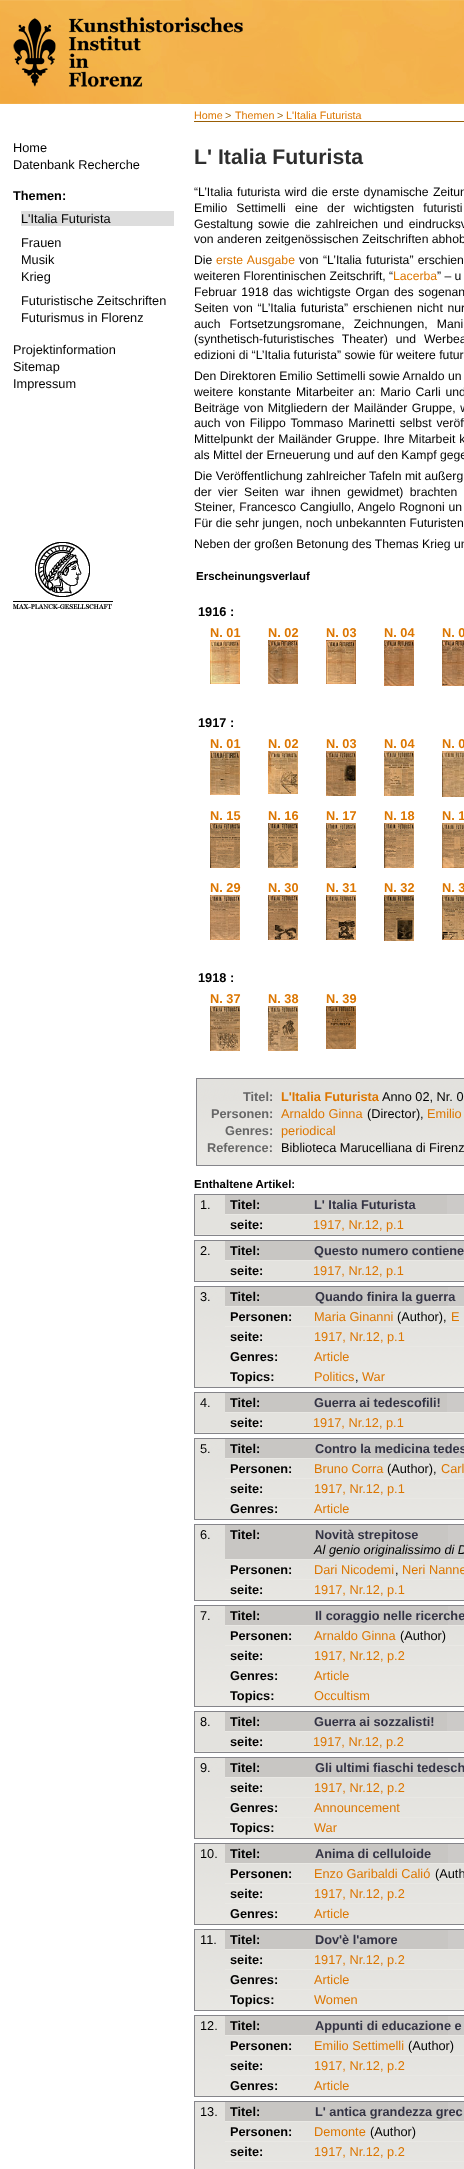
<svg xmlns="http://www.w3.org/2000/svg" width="464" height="2169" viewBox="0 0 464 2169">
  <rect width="100%" height="100%" fill="rgb(255,255,255)"/>
  <image x="0" y="0" width="464" height="104" href="pic1.png"/>
  <g font-family="Liberation Sans" font-size="12.75" fill="rgb(0,0,0)">
    <text>
      <tspan x="13" y="152">Home</tspan>
      <tspan x="13" y="169">Datenbank Recherche</tspan>
    </text>
  </g>
  <text x="13" y="200" font-family="Liberation Sans" font-size="12.75" font-weight="bold" fill="rgb(0,0,0)">Themen:</text>
  <rect x="21" y="211" width="153" height="15" fill="rgb(221,221,221)"/>
  <g font-family="Liberation Sans" font-size="12.75" fill="rgb(0,0,0)">
    <text>
      <tspan x="21" y="223">L'Italia Futurista</tspan>
      <tspan x="21" y="247">Frauen</tspan>
      <tspan x="21" y="264">Musik</tspan>
      <tspan x="21" y="281">Krieg</tspan>
      <tspan x="21" y="305">Futuristische Zeitschriften</tspan>
      <tspan x="21" y="322">Futurismus in Florenz</tspan>
    </text>
    <text>
      <tspan x="13" y="354">Projektinformation</tspan>
      <tspan x="13" y="371">Sitemap</tspan>
      <tspan x="13" y="388">Impressum</tspan>
    </text>
  </g>
  <image x="13" y="542" width="100" height="67" href="pic2.png"/>
  <rect x="194" y="121" width="270" height="1" fill="rgb(153,93,4)"/>
  <text x="194" y="119" font-family="Liberation Sans" font-size="10.75" fill="rgb(220,118,0)">Home</text>
  <text x="225" y="119" font-family="Liberation Sans" font-size="10.75" fill="rgb(153,93,4)">&gt;</text>
  <text x="235" y="119" font-family="Liberation Sans" font-size="10.75" fill="rgb(220,118,0)">Themen</text>
  <text x="277" y="119" font-family="Liberation Sans" font-size="10.75" fill="rgb(153,93,4)">&gt;</text>
  <text x="286" y="119" font-family="Liberation Sans" font-size="10.75" fill="rgb(220,118,0)">L'Italia Futurista</text>
  <text x="194" y="164" font-family="Liberation Sans" font-size="21.25" font-weight="bold" fill="rgb(46,46,46)">L' Italia Futurista</text>
  <g font-family="Liberation Sans" font-size="12.2" fill="rgb(0,0,0)">
    <text>
      <tspan x="194" y="196" word-spacing="1">“L’Italia futurista wird die erste dynamische Zeitun</tspan>
      <tspan x="194" y="212" word-spacing="5.75">Emilio Settimelli eine der wichtigsten futuristi</tspan>
      <tspan x="194" y="228" word-spacing="1.75">Gestaltung sowie die zahlreichen und eindrucksv</tspan>
      <tspan x="194" y="243">von anderen zeitgenössischen Zeitschriften abhob</tspan>
      <tspan x="194" y="264">Die</tspan>
    </text>
  </g>
  <text x="216" y="264" word-spacing="1" font-family="Liberation Sans" font-size="12.2" fill="rgb(220,118,0)">erste Ausgabe</text>
  <g font-family="Liberation Sans" font-size="12.2" fill="rgb(0,0,0)">
    <text x="299" y="264" word-spacing="1">von “L’Italia futurista” erschien</text>
    <text x="194" y="280">weiteren Florentinischen Zeitschrift, “</text>
  </g>
  <text x="393" y="280" font-family="Liberation Sans" font-size="12.2" fill="rgb(220,118,0)">Lacerba</text>
  <g font-family="Liberation Sans" font-size="12.2" fill="rgb(0,0,0)">
    <text x="437" y="280">” – u</text>
    <text>
      <tspan x="194" y="296" word-spacing="1.25">Februar 1918 das wichtigste Organ des sogenan</tspan>
      <tspan x="194" y="312" word-spacing="1.25">Seiten von “L’Italia futurista” erschienen nicht nur</tspan>
      <tspan x="194" y="328" word-spacing="5.75">auch Fortsetzungsromane, Zeichnungen, Mani</tspan>
      <tspan x="194" y="343" word-spacing="4.5">(synthetisch-futuristisches Theater) und Werbea</tspan>
      <tspan x="194" y="359">edizioni di “L’Italia futurista” sowie für weitere futur</tspan>
      <tspan x="194" y="380">Den Direktoren Emilio Settimelli sowie Arnaldo un</tspan>
      <tspan x="194" y="396" word-spacing="1.5">weitere konstante Mitarbeiter an: Mario Carli und</tspan>
      <tspan x="194" y="412" word-spacing="1">Beiträge von Mitgliedern der Mailänder Gruppe, w</tspan>
      <tspan x="194" y="427" word-spacing="1.5">auch von Filippo Tommaso Marinetti selbst veröff</tspan>
      <tspan x="194" y="443" word-spacing="0.5">Mittelpunkt der Mailänder Gruppe. Ihre Mitarbeit k</tspan>
      <tspan x="194" y="459">als Mittel der Erneuerung und auf den Kampf gege</tspan>
      <tspan x="194" y="480">Die Veröffentlichung zahlreicher Tafeln mit außerg</tspan>
      <tspan x="194" y="496" word-spacing="3">der vier Seiten war ihnen gewidmet) brachten</tspan>
      <tspan x="194" y="511" word-spacing="0.5">Steiner, Francesco Cangiullo, Angelo Rognoni un</tspan>
      <tspan x="194" y="527">Für die sehr jungen, noch unbekannten Futuristen</tspan>
      <tspan x="194" y="548">Neben der großen Betonung des Themas Krieg un</tspan>
    </text>
  </g>
  <text x="196" y="580" font-family="Liberation Sans" font-size="11.5" font-weight="bold" fill="rgb(0,0,0)">Erscheinungsverlauf</text>
  <text x="198" y="616" font-family="Liberation Sans" font-size="12.75" font-weight="bold" fill="rgb(0,0,0)">1916 :</text>
  <text x="210" y="637" font-family="Liberation Sans" font-size="12.75" font-weight="bold" fill="rgb(220,118,0)">N. 01</text>
  <image x="210" y="640" width="30" height="44" href="pic3.png"/>
  <text x="268" y="637" font-family="Liberation Sans" font-size="12.75" font-weight="bold" fill="rgb(220,118,0)">N. 02</text>
  <image x="268" y="640" width="30" height="44" href="pic4.png"/>
  <text x="326" y="637" font-family="Liberation Sans" font-size="12.75" font-weight="bold" fill="rgb(220,118,0)">N. 03</text>
  <image x="326" y="640" width="30" height="44" href="pic5.png"/>
  <text x="384" y="637" font-family="Liberation Sans" font-size="12.75" font-weight="bold" fill="rgb(220,118,0)">N. 04</text>
  <image x="384" y="640" width="30" height="46" href="pic6.png"/>
  <text x="442" y="637" font-family="Liberation Sans" font-size="12.75" font-weight="bold" fill="rgb(220,118,0)">N. 0</text>
  <image x="442" y="640" width="22" height="46" href="pic7.png"/>
  <text x="198" y="727" font-family="Liberation Sans" font-size="12.75" font-weight="bold" fill="rgb(0,0,0)">1917 :</text>
  <text x="210" y="748" font-family="Liberation Sans" font-size="12.75" font-weight="bold" fill="rgb(220,118,0)">N. 01</text>
  <image x="210" y="751" width="30" height="44" href="pic8.png"/>
  <text x="268" y="748" font-family="Liberation Sans" font-size="12.75" font-weight="bold" fill="rgb(220,118,0)">N. 02</text>
  <image x="268" y="751" width="30" height="43" href="pic9.png"/>
  <text x="326" y="748" font-family="Liberation Sans" font-size="12.75" font-weight="bold" fill="rgb(220,118,0)">N. 03</text>
  <image x="326" y="751" width="30" height="45" href="pic10.png"/>
  <text x="384" y="748" font-family="Liberation Sans" font-size="12.75" font-weight="bold" fill="rgb(220,118,0)">N. 04</text>
  <image x="384" y="751" width="30" height="45" href="pic11.png"/>
  <text x="442" y="748" font-family="Liberation Sans" font-size="12.75" font-weight="bold" fill="rgb(220,118,0)">N. 0</text>
  <image x="442" y="751" width="22" height="46" href="pic12.png"/>
  <text x="210" y="820" font-family="Liberation Sans" font-size="12.75" font-weight="bold" fill="rgb(220,118,0)">N. 15</text>
  <image x="210" y="823" width="30" height="45" href="pic13.png"/>
  <text x="268" y="820" font-family="Liberation Sans" font-size="12.75" font-weight="bold" fill="rgb(220,118,0)">N. 16</text>
  <image x="268" y="823" width="30" height="45" href="pic14.png"/>
  <text x="326" y="820" font-family="Liberation Sans" font-size="12.75" font-weight="bold" fill="rgb(220,118,0)">N. 17</text>
  <image x="326" y="823" width="30" height="45" href="pic15.png"/>
  <text x="384" y="820" font-family="Liberation Sans" font-size="12.75" font-weight="bold" fill="rgb(220,118,0)">N. 18</text>
  <image x="384" y="823" width="30" height="45" href="pic16.png"/>
  <text x="442" y="820" font-family="Liberation Sans" font-size="12.75" font-weight="bold" fill="rgb(220,118,0)">N. 1</text>
  <image x="442" y="823" width="22" height="45" href="pic17.png"/>
  <text x="210" y="892" font-family="Liberation Sans" font-size="12.75" font-weight="bold" fill="rgb(220,118,0)">N. 29</text>
  <image x="210" y="895" width="30" height="45" href="pic18.png"/>
  <text x="268" y="892" font-family="Liberation Sans" font-size="12.75" font-weight="bold" fill="rgb(220,118,0)">N. 30</text>
  <image x="268" y="895" width="30" height="45" href="pic19.png"/>
  <text x="326" y="892" font-family="Liberation Sans" font-size="12.75" font-weight="bold" fill="rgb(220,118,0)">N. 31</text>
  <image x="326" y="895" width="30" height="45" href="pic20.png"/>
  <text x="384" y="892" font-family="Liberation Sans" font-size="12.75" font-weight="bold" fill="rgb(220,118,0)">N. 32</text>
  <image x="384" y="895" width="30" height="46" href="pic21.png"/>
  <text x="442" y="892" font-family="Liberation Sans" font-size="12.75" font-weight="bold" fill="rgb(220,118,0)">N. 3</text>
  <image x="442" y="895" width="22" height="45" href="pic22.png"/>
  <text x="198" y="982" font-family="Liberation Sans" font-size="12.75" font-weight="bold" fill="rgb(0,0,0)">1918 :</text>
  <text x="210" y="1003" font-family="Liberation Sans" font-size="12.75" font-weight="bold" fill="rgb(220,118,0)">N. 37</text>
  <image x="210" y="1006" width="30" height="45" href="pic23.png"/>
  <text x="268" y="1003" font-family="Liberation Sans" font-size="12.75" font-weight="bold" fill="rgb(220,118,0)">N. 38</text>
  <image x="268" y="1006" width="30" height="45" href="pic24.png"/>
  <text x="326" y="1003" font-family="Liberation Sans" font-size="12.75" font-weight="bold" fill="rgb(220,118,0)">N. 39</text>
  <image x="326" y="1006" width="30" height="43" href="pic25.png"/>
  <image x="197" y="1079" width="267" height="86" href="pic26.png"/>
  <rect x="196.5" y="1078.5" width="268" height="87" fill="none" stroke="rgb(133,133,138)"/>
  <text x="243" y="1101" font-family="Liberation Sans" font-size="12.75" font-weight="bold" fill="rgb(102,102,102)">Titel:</text>
  <text x="281" y="1101" font-family="Liberation Sans" font-size="12.75" font-weight="bold" fill="rgb(220,118,0)">L'Italia Futurista</text>
  <text x="382" y="1101" font-family="Liberation Sans" font-size="12.75" fill="rgb(0,0,0)">Anno 02, Nr. 0</text>
  <text x="211" y="1118" font-family="Liberation Sans" font-size="12.75" font-weight="bold" fill="rgb(102,102,102)">Personen:</text>
  <text x="281" y="1118" font-family="Liberation Sans" font-size="12.75" fill="rgb(220,118,0)">Arnaldo Ginna</text>
  <text x="367" y="1118" font-family="Liberation Sans" font-size="12.75" fill="rgb(0,0,0)">(Director),</text>
  <text x="427" y="1118" font-family="Liberation Sans" font-size="12.75" fill="rgb(220,118,0)">Emilio</text>
  <text x="225" y="1135" font-family="Liberation Sans" font-size="12.75" font-weight="bold" fill="rgb(102,102,102)">Genres:</text>
  <text x="281" y="1135" font-family="Liberation Sans" font-size="12.75" fill="rgb(220,118,0)">periodical</text>
  <text x="207" y="1152" font-family="Liberation Sans" font-size="12.75" font-weight="bold" fill="rgb(102,102,102)">Reference:</text>
  <text x="281" y="1152" font-family="Liberation Sans" font-size="12.75" fill="rgb(0,0,0)">Biblioteca Marucelliana di Firenz</text>
  <text x="194" y="1188" font-family="Liberation Sans" font-size="11.5" font-weight="bold" fill="rgb(0,0,0)">Enthaltene Artikel:</text>
  <rect x="195" y="1195" width="269" height="39" fill="rgb(227,226,222)"/>
  <rect x="194.5" y="1194.5" width="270" height="41" fill="none" stroke="rgb(133,133,138)"/>
  <rect x="195" y="1234" width="269" height="1" fill="rgb(233,232,228)"/>
  <text x="200" y="1209" font-family="Liberation Sans" font-size="12.75" fill="rgb(0,0,0)">1.</text>
  <rect x="225" y="1195" width="222" height="19" fill="rgb(200,198,195)"/>
  <rect x="225" y="1214" width="239" height="1" fill="rgb(233,232,228)"/>
  <text x="230" y="1209" font-family="Liberation Sans" font-size="12.75" font-weight="bold" fill="rgb(0,0,0)">Titel:</text>
  <rect x="447" y="1195" width="17" height="19" fill="rgb(204,202,200)"/>
  <text x="314" y="1209" font-family="Liberation Sans" font-size="12.75" font-weight="bold" fill="rgb(51,51,68)">L' Italia Futurista</text>
  <text x="230" y="1229" font-family="Liberation Sans" font-size="12.75" font-weight="bold" fill="rgb(0,0,0)">seite:</text>
  <text x="313" y="1229" font-family="Liberation Sans" font-size="12.75" fill="rgb(220,118,0)">1917, Nr.12, p.1</text>
  <rect x="195" y="1241" width="269" height="39" fill="rgb(227,226,222)"/>
  <rect x="194.5" y="1240.5" width="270" height="41" fill="none" stroke="rgb(133,133,138)"/>
  <rect x="195" y="1280" width="269" height="1" fill="rgb(233,232,228)"/>
  <text x="200" y="1255" font-family="Liberation Sans" font-size="12.75" fill="rgb(0,0,0)">2.</text>
  <rect x="225" y="1241" width="222" height="19" fill="rgb(200,198,195)"/>
  <rect x="225" y="1260" width="239" height="1" fill="rgb(233,232,228)"/>
  <text x="230" y="1255" font-family="Liberation Sans" font-size="12.75" font-weight="bold" fill="rgb(0,0,0)">Titel:</text>
  <rect x="447" y="1241" width="17" height="19" fill="rgb(204,202,200)"/>
  <text x="314" y="1255" font-family="Liberation Sans" font-size="12.75" font-weight="bold" fill="rgb(51,51,68)">Questo numero contiene</text>
  <text x="230" y="1275" font-family="Liberation Sans" font-size="12.75" font-weight="bold" fill="rgb(0,0,0)">seite:</text>
  <text x="313" y="1275" font-family="Liberation Sans" font-size="12.75" fill="rgb(220,118,0)">1917, Nr.12, p.1</text>
  <image x="195" y="1287" width="269" height="100" href="pic27.png"/>
  <rect x="194.5" y="1286.5" width="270" height="101" fill="none" stroke="rgb(133,133,138)"/>
  <text x="200" y="1301" font-family="Liberation Sans" font-size="12.75" fill="rgb(0,0,0)">3.</text>
  <rect x="225" y="1287" width="223" height="19" fill="rgb(200,198,195)"/>
  <rect x="225" y="1306" width="239" height="1" fill="rgb(233,232,228)"/>
  <text x="230" y="1301" font-family="Liberation Sans" font-size="12.75" font-weight="bold" fill="rgb(0,0,0)">Titel:</text>
  <rect x="448" y="1287" width="16" height="19" fill="rgb(204,202,200)"/>
  <text x="315" y="1301" font-family="Liberation Sans" font-size="12.75" font-weight="bold" fill="rgb(51,51,68)">Quando finira la guerra</text>
  <rect x="225" y="1326" width="239" height="1" fill="rgb(233,232,228)"/>
  <text x="230" y="1321" font-family="Liberation Sans" font-size="12.75" font-weight="bold" fill="rgb(0,0,0)">Personen:</text>
  <text x="314" y="1321" font-family="Liberation Sans" font-size="12.75" fill="rgb(220,118,0)">Maria Ginanni</text>
  <text x="397" y="1321" font-family="Liberation Sans" font-size="12.75" fill="rgb(0,0,0)">(Author),</text>
  <text x="451" y="1321" font-family="Liberation Sans" font-size="12.75" fill="rgb(220,118,0)">E</text>
  <rect x="225" y="1346" width="239" height="1" fill="rgb(233,232,228)"/>
  <text x="230" y="1341" font-family="Liberation Sans" font-size="12.75" font-weight="bold" fill="rgb(0,0,0)">seite:</text>
  <text x="314" y="1341" font-family="Liberation Sans" font-size="12.75" fill="rgb(220,118,0)">1917, Nr.12, p.1</text>
  <text x="230" y="1361" font-family="Liberation Sans" font-size="12.75" font-weight="bold" fill="rgb(0,0,0)">Genres:</text>
  <text x="314" y="1361" font-family="Liberation Sans" font-size="12.75" fill="rgb(220,118,0)">Article</text>
  <text x="230" y="1381" font-family="Liberation Sans" font-size="12.75" font-weight="bold" fill="rgb(0,0,0)">Topics:</text>
  <text x="314" y="1381" font-family="Liberation Sans" font-size="12.75" fill="rgb(220,118,0)">Politics</text>
  <text x="355" y="1381" font-family="Liberation Sans" font-size="12.75" fill="rgb(0,0,0)">,</text>
  <text x="362" y="1381" font-family="Liberation Sans" font-size="12.75" fill="rgb(220,118,0)">War</text>
  <rect x="195" y="1393" width="269" height="39" fill="rgb(227,226,222)"/>
  <rect x="194.5" y="1392.5" width="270" height="41" fill="none" stroke="rgb(133,133,138)"/>
  <rect x="195" y="1432" width="269" height="1" fill="rgb(233,232,228)"/>
  <text x="200" y="1407" font-family="Liberation Sans" font-size="12.75" fill="rgb(0,0,0)">4.</text>
  <rect x="225" y="1393" width="222" height="19" fill="rgb(200,198,195)"/>
  <rect x="225" y="1412" width="239" height="1" fill="rgb(233,232,228)"/>
  <text x="230" y="1407" font-family="Liberation Sans" font-size="12.75" font-weight="bold" fill="rgb(0,0,0)">Titel:</text>
  <rect x="447" y="1393" width="17" height="19" fill="rgb(204,202,200)"/>
  <text x="314" y="1407" font-family="Liberation Sans" font-size="12.75" font-weight="bold" fill="rgb(51,51,68)">Guerra ai tedescofili!</text>
  <text x="230" y="1427" font-family="Liberation Sans" font-size="12.75" font-weight="bold" fill="rgb(0,0,0)">seite:</text>
  <text x="313" y="1427" font-family="Liberation Sans" font-size="12.75" fill="rgb(220,118,0)">1917, Nr.12, p.1</text>
  <image x="195" y="1439" width="269" height="79" href="pic28.png"/>
  <rect x="194.5" y="1438.5" width="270" height="81" fill="none" stroke="rgb(133,133,138)"/>
  <rect x="195" y="1518" width="269" height="1" fill="rgb(233,232,228)"/>
  <text x="200" y="1453" font-family="Liberation Sans" font-size="12.75" fill="rgb(0,0,0)">5.</text>
  <rect x="225" y="1439" width="223" height="19" fill="rgb(200,198,195)"/>
  <rect x="225" y="1458" width="239" height="1" fill="rgb(233,232,228)"/>
  <text x="230" y="1453" font-family="Liberation Sans" font-size="12.75" font-weight="bold" fill="rgb(0,0,0)">Titel:</text>
  <rect x="448" y="1439" width="16" height="19" fill="rgb(204,202,200)"/>
  <text x="315" y="1453" font-family="Liberation Sans" font-size="12.75" font-weight="bold" fill="rgb(51,51,68)">Contro la medicina tedes</text>
  <rect x="225" y="1478" width="239" height="1" fill="rgb(233,232,228)"/>
  <text x="230" y="1473" font-family="Liberation Sans" font-size="12.75" font-weight="bold" fill="rgb(0,0,0)">Personen:</text>
  <text x="314" y="1473" font-family="Liberation Sans" font-size="12.75" fill="rgb(220,118,0)">Bruno Corra</text>
  <text x="387" y="1473" font-family="Liberation Sans" font-size="12.75" fill="rgb(0,0,0)">(Author),</text>
  <text x="441" y="1473" font-family="Liberation Sans" font-size="12.75" fill="rgb(220,118,0)">Carl</text>
  <rect x="225" y="1498" width="239" height="1" fill="rgb(233,232,228)"/>
  <text x="230" y="1493" font-family="Liberation Sans" font-size="12.75" font-weight="bold" fill="rgb(0,0,0)">seite:</text>
  <text x="314" y="1493" font-family="Liberation Sans" font-size="12.75" fill="rgb(220,118,0)">1917, Nr.12, p.1</text>
  <text x="230" y="1513" font-family="Liberation Sans" font-size="12.75" font-weight="bold" fill="rgb(0,0,0)">Genres:</text>
  <text x="314" y="1513" font-family="Liberation Sans" font-size="12.75" fill="rgb(220,118,0)">Article</text>
  <image x="195" y="1525" width="269" height="74" href="pic29.png"/>
  <rect x="194.5" y="1524.5" width="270" height="76" fill="none" stroke="rgb(133,133,138)"/>
  <rect x="195" y="1599" width="269" height="1" fill="rgb(233,232,228)"/>
  <text x="200" y="1539" font-family="Liberation Sans" font-size="12.75" fill="rgb(0,0,0)">6.</text>
  <rect x="225" y="1525" width="223" height="34" fill="rgb(200,198,195)"/>
  <rect x="225" y="1559" width="239" height="1" fill="rgb(233,232,228)"/>
  <text x="230" y="1539" font-family="Liberation Sans" font-size="12.75" font-weight="bold" fill="rgb(0,0,0)">Titel:</text>
  <rect x="448" y="1525" width="16" height="34" fill="rgb(204,202,200)"/>
  <text x="315" y="1539" font-family="Liberation Sans" font-size="12.75" font-weight="bold" fill="rgb(51,51,68)">Novità strepitose</text>
  <text x="314" y="1554" font-family="Liberation Sans" font-size="12.75" font-style="italic" fill="rgb(0,0,0)">Al genio originalissimo di D</text>
  <rect x="225" y="1579" width="239" height="1" fill="rgb(233,232,228)"/>
  <text x="230" y="1574" font-family="Liberation Sans" font-size="12.75" font-weight="bold" fill="rgb(0,0,0)">Personen:</text>
  <text x="314" y="1574" font-family="Liberation Sans" font-size="12.75" fill="rgb(220,118,0)">Dari Nicodemi</text>
  <text x="395" y="1574" font-family="Liberation Sans" font-size="12.75" fill="rgb(0,0,0)">,</text>
  <text x="402" y="1574" font-family="Liberation Sans" font-size="12.75" fill="rgb(220,118,0)">Neri Nanne</text>
  <text x="230" y="1594" font-family="Liberation Sans" font-size="12.75" font-weight="bold" fill="rgb(0,0,0)">seite:</text>
  <text x="314" y="1594" font-family="Liberation Sans" font-size="12.75" fill="rgb(220,118,0)">1917, Nr.12, p.1</text>
  <image x="195" y="1606" width="269" height="100" href="pic27.png"/>
  <rect x="194.5" y="1605.5" width="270" height="101" fill="none" stroke="rgb(133,133,138)"/>
  <text x="200" y="1620" font-family="Liberation Sans" font-size="12.75" fill="rgb(0,0,0)">7.</text>
  <rect x="225" y="1606" width="223" height="19" fill="rgb(200,198,195)"/>
  <rect x="225" y="1625" width="239" height="1" fill="rgb(233,232,228)"/>
  <text x="230" y="1620" font-family="Liberation Sans" font-size="12.75" font-weight="bold" fill="rgb(0,0,0)">Titel:</text>
  <rect x="448" y="1606" width="16" height="19" fill="rgb(204,202,200)"/>
  <text x="315" y="1620" font-family="Liberation Sans" font-size="12.75" font-weight="bold" fill="rgb(51,51,68)">Il coraggio nelle ricerche</text>
  <rect x="225" y="1645" width="239" height="1" fill="rgb(233,232,228)"/>
  <text x="230" y="1640" font-family="Liberation Sans" font-size="12.75" font-weight="bold" fill="rgb(0,0,0)">Personen:</text>
  <text x="314" y="1640" font-family="Liberation Sans" font-size="12.75" fill="rgb(220,118,0)">Arnaldo Ginna</text>
  <text x="400" y="1640" font-family="Liberation Sans" font-size="12.75" fill="rgb(0,0,0)">(Author)</text>
  <rect x="225" y="1665" width="239" height="1" fill="rgb(233,232,228)"/>
  <text x="230" y="1660" font-family="Liberation Sans" font-size="12.75" font-weight="bold" fill="rgb(0,0,0)">seite:</text>
  <text x="314" y="1660" font-family="Liberation Sans" font-size="12.75" fill="rgb(220,118,0)">1917, Nr.12, p.2</text>
  <text x="230" y="1680" font-family="Liberation Sans" font-size="12.75" font-weight="bold" fill="rgb(0,0,0)">Genres:</text>
  <text x="314" y="1680" font-family="Liberation Sans" font-size="12.75" fill="rgb(220,118,0)">Article</text>
  <text x="230" y="1700" font-family="Liberation Sans" font-size="12.75" font-weight="bold" fill="rgb(0,0,0)">Topics:</text>
  <text x="314" y="1700" font-family="Liberation Sans" font-size="12.75" fill="rgb(220,118,0)">Occultism</text>
  <rect x="195" y="1712" width="269" height="39" fill="rgb(227,226,222)"/>
  <rect x="194.5" y="1711.5" width="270" height="41" fill="none" stroke="rgb(133,133,138)"/>
  <rect x="195" y="1751" width="269" height="1" fill="rgb(233,232,228)"/>
  <text x="200" y="1726" font-family="Liberation Sans" font-size="12.75" fill="rgb(0,0,0)">8.</text>
  <rect x="225" y="1712" width="222" height="19" fill="rgb(200,198,195)"/>
  <rect x="225" y="1731" width="239" height="1" fill="rgb(233,232,228)"/>
  <text x="230" y="1726" font-family="Liberation Sans" font-size="12.75" font-weight="bold" fill="rgb(0,0,0)">Titel:</text>
  <rect x="447" y="1712" width="17" height="19" fill="rgb(204,202,200)"/>
  <text x="314" y="1726" font-family="Liberation Sans" font-size="12.75" font-weight="bold" fill="rgb(51,51,68)">Guerra ai sozzalisti!</text>
  <text x="230" y="1746" font-family="Liberation Sans" font-size="12.75" font-weight="bold" fill="rgb(0,0,0)">seite:</text>
  <text x="313" y="1746" font-family="Liberation Sans" font-size="12.75" fill="rgb(220,118,0)">1917, Nr.12, p.2</text>
  <image x="195" y="1758" width="269" height="79" href="pic28.png"/>
  <rect x="194.5" y="1757.5" width="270" height="81" fill="none" stroke="rgb(133,133,138)"/>
  <rect x="195" y="1837" width="269" height="1" fill="rgb(233,232,228)"/>
  <text x="200" y="1772" font-family="Liberation Sans" font-size="12.75" fill="rgb(0,0,0)">9.</text>
  <rect x="225" y="1758" width="223" height="19" fill="rgb(200,198,195)"/>
  <rect x="225" y="1777" width="239" height="1" fill="rgb(233,232,228)"/>
  <text x="230" y="1772" font-family="Liberation Sans" font-size="12.75" font-weight="bold" fill="rgb(0,0,0)">Titel:</text>
  <rect x="448" y="1758" width="16" height="19" fill="rgb(204,202,200)"/>
  <text x="315" y="1772" font-family="Liberation Sans" font-size="12.75" font-weight="bold" fill="rgb(51,51,68)">Gli ultimi fiaschi tedesch</text>
  <rect x="225" y="1797" width="239" height="1" fill="rgb(233,232,228)"/>
  <text x="230" y="1792" font-family="Liberation Sans" font-size="12.75" font-weight="bold" fill="rgb(0,0,0)">seite:</text>
  <text x="314" y="1792" font-family="Liberation Sans" font-size="12.75" fill="rgb(220,118,0)">1917, Nr.12, p.2</text>
  <rect x="225" y="1817" width="239" height="1" fill="rgb(233,232,228)"/>
  <text x="230" y="1812" font-family="Liberation Sans" font-size="12.75" font-weight="bold" fill="rgb(0,0,0)">Genres:</text>
  <text x="314" y="1812" font-family="Liberation Sans" font-size="12.75" fill="rgb(220,118,0)">Announcement</text>
  <text x="230" y="1832" font-family="Liberation Sans" font-size="12.75" font-weight="bold" fill="rgb(0,0,0)">Topics:</text>
  <text x="314" y="1832" font-family="Liberation Sans" font-size="12.75" fill="rgb(220,118,0)">War</text>
  <image x="195" y="1844" width="269" height="79" href="pic28.png"/>
  <rect x="194.5" y="1843.5" width="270" height="81" fill="none" stroke="rgb(133,133,138)"/>
  <rect x="195" y="1923" width="269" height="1" fill="rgb(233,232,228)"/>
  <text x="200" y="1858" font-family="Liberation Sans" font-size="12.75" fill="rgb(0,0,0)">10.</text>
  <rect x="225" y="1844" width="223" height="19" fill="rgb(200,198,195)"/>
  <rect x="225" y="1863" width="239" height="1" fill="rgb(233,232,228)"/>
  <text x="230" y="1858" font-family="Liberation Sans" font-size="12.75" font-weight="bold" fill="rgb(0,0,0)">Titel:</text>
  <rect x="448" y="1844" width="16" height="19" fill="rgb(204,202,200)"/>
  <text x="315" y="1858" font-family="Liberation Sans" font-size="12.75" font-weight="bold" fill="rgb(51,51,68)">Anima di celluloide</text>
  <rect x="225" y="1883" width="239" height="1" fill="rgb(233,232,228)"/>
  <text x="230" y="1878" font-family="Liberation Sans" font-size="12.75" font-weight="bold" fill="rgb(0,0,0)">Personen:</text>
  <text x="314" y="1878" font-family="Liberation Sans" font-size="12.75" fill="rgb(220,118,0)">Enzo Garibaldi Calió</text>
  <text x="435" y="1878" font-family="Liberation Sans" font-size="12.75" fill="rgb(0,0,0)">(Auth</text>
  <rect x="225" y="1903" width="239" height="1" fill="rgb(233,232,228)"/>
  <text x="230" y="1898" font-family="Liberation Sans" font-size="12.75" font-weight="bold" fill="rgb(0,0,0)">seite:</text>
  <text x="314" y="1898" font-family="Liberation Sans" font-size="12.75" fill="rgb(220,118,0)">1917, Nr.12, p.2</text>
  <text x="230" y="1918" font-family="Liberation Sans" font-size="12.75" font-weight="bold" fill="rgb(0,0,0)">Genres:</text>
  <text x="314" y="1918" font-family="Liberation Sans" font-size="12.75" fill="rgb(220,118,0)">Article</text>
  <image x="195" y="1930" width="269" height="79" href="pic28.png"/>
  <rect x="194.5" y="1929.5" width="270" height="81" fill="none" stroke="rgb(133,133,138)"/>
  <rect x="195" y="2009" width="269" height="1" fill="rgb(233,232,228)"/>
  <text x="200" y="1944" font-family="Liberation Sans" font-size="12.75" fill="rgb(0,0,0)">11.</text>
  <rect x="225" y="1930" width="223" height="19" fill="rgb(200,198,195)"/>
  <rect x="225" y="1949" width="239" height="1" fill="rgb(233,232,228)"/>
  <text x="230" y="1944" font-family="Liberation Sans" font-size="12.75" font-weight="bold" fill="rgb(0,0,0)">Titel:</text>
  <rect x="448" y="1930" width="16" height="19" fill="rgb(204,202,200)"/>
  <text x="315" y="1944" font-family="Liberation Sans" font-size="12.75" font-weight="bold" fill="rgb(51,51,68)">Dov'è l'amore</text>
  <rect x="225" y="1969" width="239" height="1" fill="rgb(233,232,228)"/>
  <text x="230" y="1964" font-family="Liberation Sans" font-size="12.75" font-weight="bold" fill="rgb(0,0,0)">seite:</text>
  <text x="314" y="1964" font-family="Liberation Sans" font-size="12.75" fill="rgb(220,118,0)">1917, Nr.12, p.2</text>
  <rect x="225" y="1989" width="239" height="1" fill="rgb(233,232,228)"/>
  <text x="230" y="1984" font-family="Liberation Sans" font-size="12.75" font-weight="bold" fill="rgb(0,0,0)">Genres:</text>
  <text x="314" y="1984" font-family="Liberation Sans" font-size="12.75" fill="rgb(220,118,0)">Article</text>
  <text x="230" y="2004" font-family="Liberation Sans" font-size="12.75" font-weight="bold" fill="rgb(0,0,0)">Topics:</text>
  <text x="314" y="2004" font-family="Liberation Sans" font-size="12.75" fill="rgb(220,118,0)">Women</text>
  <image x="195" y="2016" width="269" height="79" href="pic28.png"/>
  <rect x="194.5" y="2015.5" width="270" height="81" fill="none" stroke="rgb(133,133,138)"/>
  <rect x="195" y="2095" width="269" height="1" fill="rgb(233,232,228)"/>
  <text x="200" y="2030" font-family="Liberation Sans" font-size="12.75" fill="rgb(0,0,0)">12.</text>
  <rect x="225" y="2016" width="223" height="19" fill="rgb(200,198,195)"/>
  <rect x="225" y="2035" width="239" height="1" fill="rgb(233,232,228)"/>
  <text x="230" y="2030" font-family="Liberation Sans" font-size="12.75" font-weight="bold" fill="rgb(0,0,0)">Titel:</text>
  <rect x="448" y="2016" width="16" height="19" fill="rgb(204,202,200)"/>
  <text x="315" y="2030" font-family="Liberation Sans" font-size="12.75" font-weight="bold" fill="rgb(51,51,68)">Appunti di educazione e</text>
  <rect x="225" y="2055" width="239" height="1" fill="rgb(233,232,228)"/>
  <text x="230" y="2050" font-family="Liberation Sans" font-size="12.75" font-weight="bold" fill="rgb(0,0,0)">Personen:</text>
  <text x="314" y="2050" font-family="Liberation Sans" font-size="12.75" fill="rgb(220,118,0)">Emilio Settimelli</text>
  <text x="408" y="2050" font-family="Liberation Sans" font-size="12.75" fill="rgb(0,0,0)">(Author)</text>
  <rect x="225" y="2075" width="239" height="1" fill="rgb(233,232,228)"/>
  <text x="230" y="2070" font-family="Liberation Sans" font-size="12.75" font-weight="bold" fill="rgb(0,0,0)">seite:</text>
  <text x="314" y="2070" font-family="Liberation Sans" font-size="12.75" fill="rgb(220,118,0)">1917, Nr.12, p.2</text>
  <text x="230" y="2090" font-family="Liberation Sans" font-size="12.75" font-weight="bold" fill="rgb(0,0,0)">Genres:</text>
  <text x="314" y="2090" font-family="Liberation Sans" font-size="12.75" fill="rgb(220,118,0)">Article</text>
  <image x="195" y="2102" width="269" height="67" href="pic30.png"/>
  <rect x="194.5" y="2101.5" width="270" height="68" fill="none" stroke="rgb(133,133,138)"/>
  <text x="200" y="2116" font-family="Liberation Sans" font-size="12.75" fill="rgb(0,0,0)">13.</text>
  <rect x="225" y="2102" width="223" height="19" fill="rgb(200,198,195)"/>
  <rect x="225" y="2121" width="239" height="1" fill="rgb(233,232,228)"/>
  <text x="230" y="2116" font-family="Liberation Sans" font-size="12.75" font-weight="bold" fill="rgb(0,0,0)">Titel:</text>
  <rect x="448" y="2102" width="16" height="19" fill="rgb(204,202,200)"/>
  <text x="315" y="2116" font-family="Liberation Sans" font-size="12.75" font-weight="bold" fill="rgb(51,51,68)">L' antica grandezza grec</text>
  <rect x="225" y="2141" width="239" height="1" fill="rgb(233,232,228)"/>
  <text x="230" y="2136" font-family="Liberation Sans" font-size="12.75" font-weight="bold" fill="rgb(0,0,0)">Personen:</text>
  <text x="314" y="2136" font-family="Liberation Sans" font-size="12.75" fill="rgb(220,118,0)">Demonte</text>
  <text x="370" y="2136" font-family="Liberation Sans" font-size="12.75" fill="rgb(0,0,0)">(Author)</text>
  <rect x="225" y="2161" width="239" height="1" fill="rgb(233,232,228)"/>
  <text x="230" y="2156" font-family="Liberation Sans" font-size="12.75" font-weight="bold" fill="rgb(0,0,0)">seite:</text>
  <text x="314" y="2156" font-family="Liberation Sans" font-size="12.75" fill="rgb(220,118,0)">1917, Nr.12, p.2</text>
</svg>
